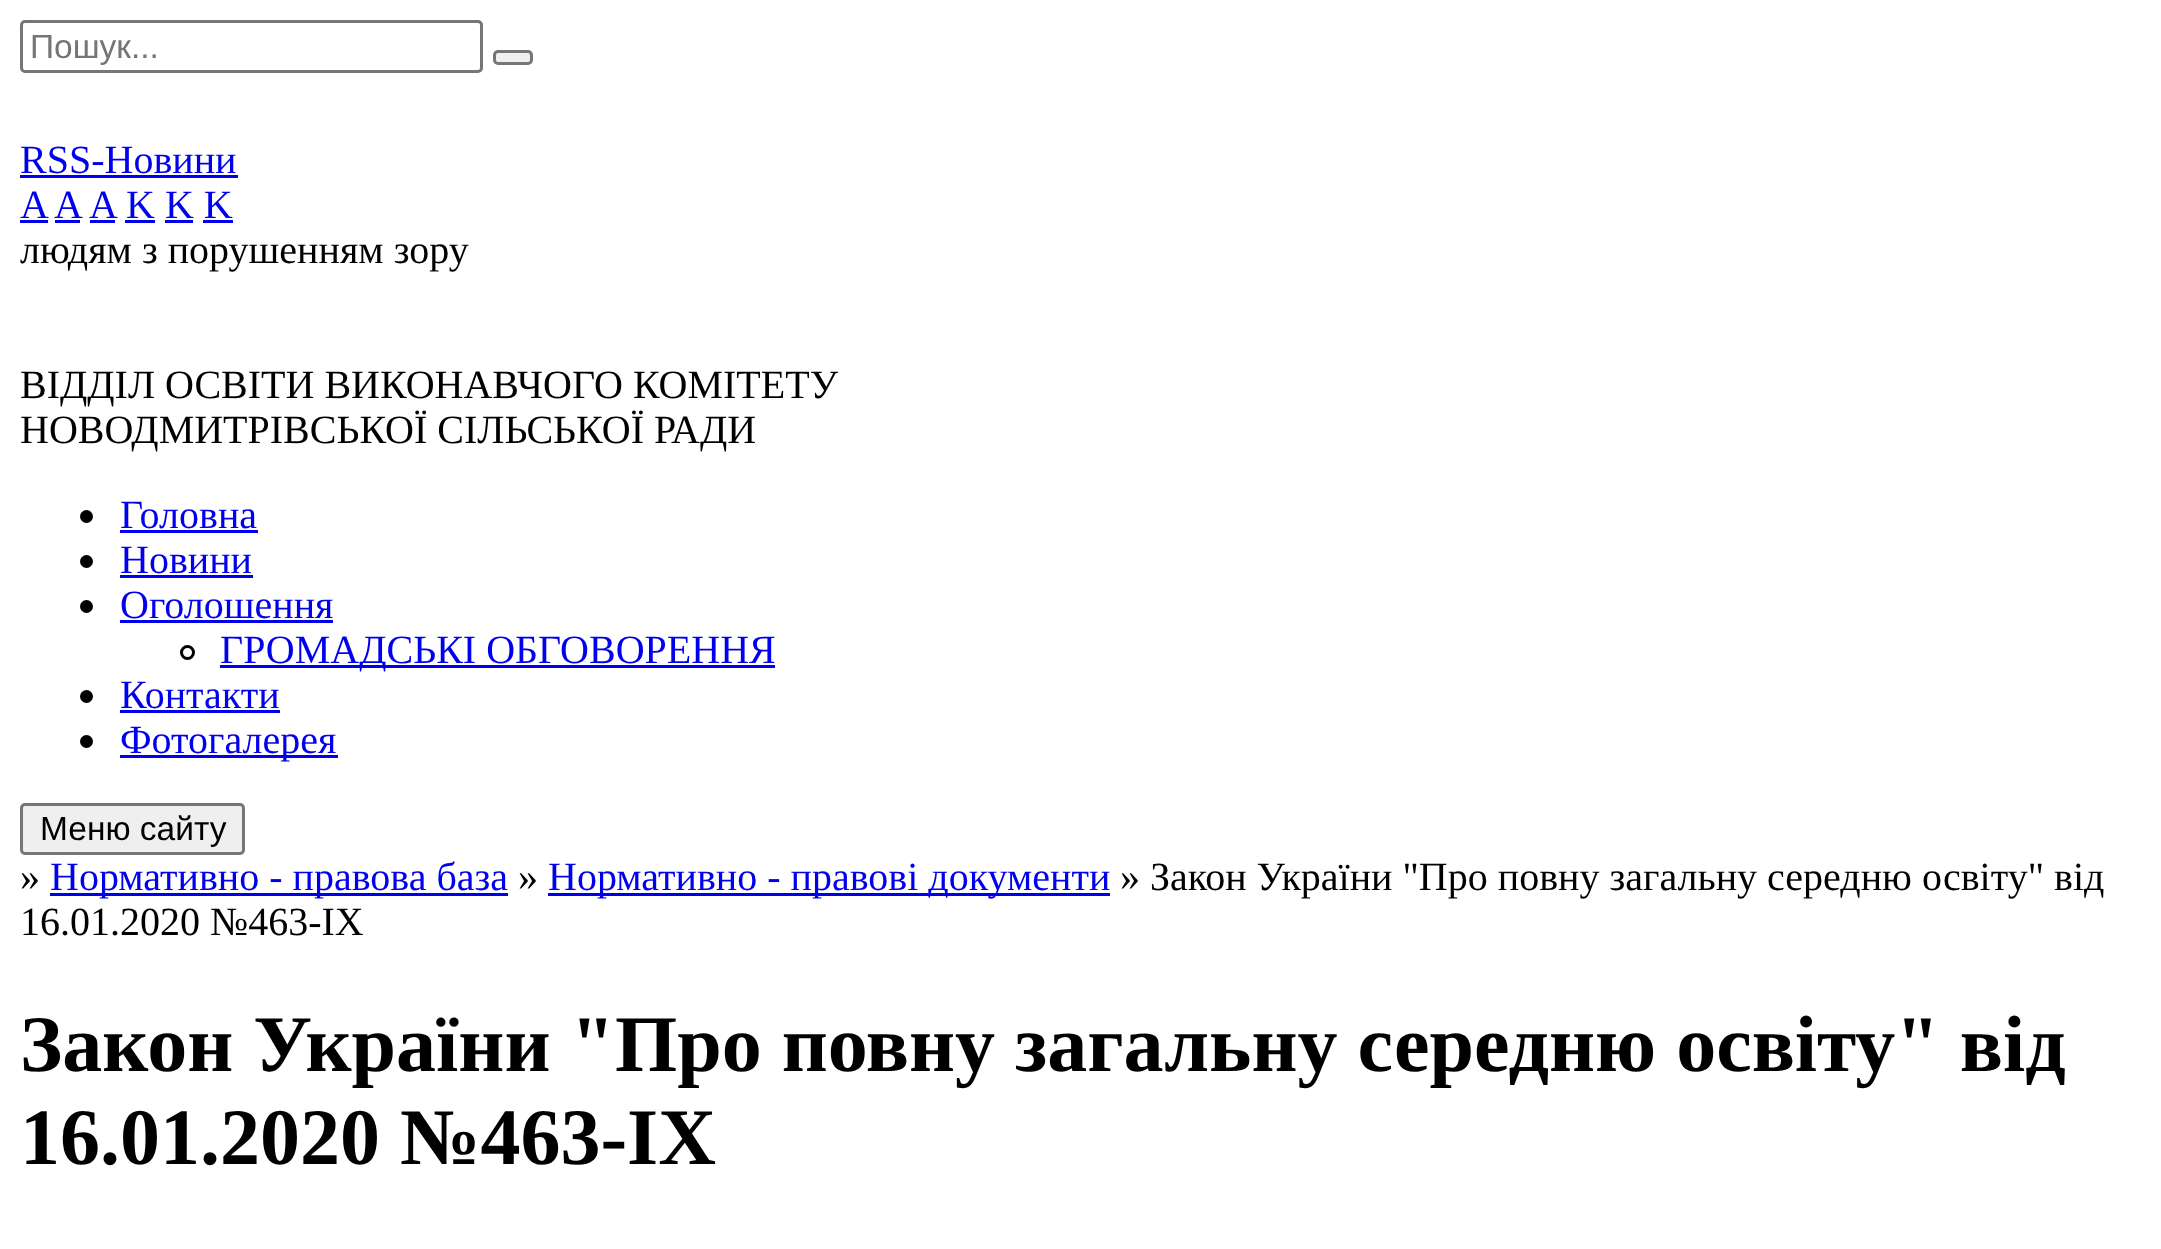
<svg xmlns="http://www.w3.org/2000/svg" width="2161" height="1249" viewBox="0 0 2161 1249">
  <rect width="100%" height="100%" fill="rgb(255,255,255)"/>
  <rect x="21.5" y="21.5" width="460" height="50" rx="3.5" fill="none" stroke="rgb(118,118,118)" stroke-width="3"/>
  <text x="30" y="58" font-family="Liberation Sans" font-size="33.5" fill="rgb(117,117,117)">Пошук...</text>
  <rect x="494.5" y="51.5" width="37" height="12" rx="3.5" fill="rgb(239,239,239)" stroke="rgb(118,118,118)" stroke-width="3"/>
  <text x="20" y="173" font-family="Liberation Serif" font-size="40" fill="rgb(0,0,238)">RSS-Новини</text>
  <rect x="20" y="175" width="218" height="3" fill="rgb(0,0,238)"/>
  <text x="20" y="218" font-family="Liberation Serif" font-size="40" fill="rgb(0,0,238)">A</text>
  <rect x="20" y="220" width="28" height="3" fill="rgb(0,0,238)"/>
  <text x="54" y="218" font-family="Liberation Serif" font-size="40" fill="rgb(0,0,238)">A</text>
  <rect x="55" y="220" width="25" height="3" fill="rgb(0,0,238)"/>
  <text x="89" y="218" font-family="Liberation Serif" font-size="40" fill="rgb(0,0,238)">A</text>
  <rect x="90" y="220" width="25" height="3" fill="rgb(0,0,238)"/>
  <text x="126" y="218" font-family="Liberation Serif" font-size="40" fill="rgb(0,0,238)">K K K</text>
  <rect x="125" y="220" width="30" height="3" fill="rgb(0,0,238)"/>
  <rect x="165" y="220" width="28" height="3" fill="rgb(0,0,238)"/>
  <rect x="203" y="220" width="30" height="3" fill="rgb(0,0,238)"/>
  <g font-family="Liberation Serif" font-size="40" fill="rgb(0,0,0)">
    <text x="20" y="263">людям з порушенням зору</text>
    <text>
      <tspan x="20" y="398">ВІДДІЛ ОСВІТИ ВИКОНАВЧОГО КОМІТЕТУ</tspan>
      <tspan x="20" y="443">НОВОДМИТРІВСЬКОЇ СІЛЬСЬКОЇ РАДИ</tspan>
    </text>
  </g>
  <circle cx="86.5" cy="516.5" r="6.5" fill="rgb(0,0,0)"/>
  <text x="120" y="528" font-family="Liberation Serif" font-size="40" fill="rgb(0,0,238)">Головна</text>
  <rect x="120" y="530" width="138" height="3" fill="rgb(0,0,238)"/>
  <circle cx="86.5" cy="561.5" r="6.5" fill="rgb(0,0,0)"/>
  <text x="120" y="573" font-family="Liberation Serif" font-size="40" fill="rgb(0,0,238)">Новини</text>
  <rect x="120" y="575" width="133" height="3" fill="rgb(0,0,238)"/>
  <circle cx="86.5" cy="606.5" r="6.5" fill="rgb(0,0,0)"/>
  <text x="120" y="618" font-family="Liberation Serif" font-size="40" fill="rgb(0,0,238)">Оголошення</text>
  <rect x="120" y="620" width="213" height="3" fill="rgb(0,0,238)"/>
  <circle cx="187.5" cy="652.5" r="6" fill="none" stroke="rgb(0,0,0)" stroke-width="3"/>
  <rect x="220" y="665" width="555" height="3" fill="rgb(0,0,238)"/>
  <text x="220" y="663" font-family="Liberation Serif" font-size="40" fill="rgb(0,0,238)">ГРОМАДСЬКІ ОБГОВОРЕННЯ</text>
  <circle cx="86.5" cy="696.5" r="6.5" fill="rgb(0,0,0)"/>
  <text x="120" y="708" font-family="Liberation Serif" font-size="40" fill="rgb(0,0,238)">Контакти</text>
  <rect x="120" y="710" width="160" height="3" fill="rgb(0,0,238)"/>
  <circle cx="86.5" cy="741.5" r="6.5" fill="rgb(0,0,0)"/>
  <rect x="120" y="755" width="218" height="3" fill="rgb(0,0,238)"/>
  <text x="120" y="753" font-family="Liberation Serif" font-size="40" fill="rgb(0,0,238)">Фотогалерея</text>
  <rect x="21.5" y="804.5" width="222" height="49" rx="3.5" fill="rgb(239,239,239)" stroke="rgb(118,118,118)" stroke-width="3"/>
  <text x="40" y="840" font-family="Liberation Sans" font-size="33.5" fill="rgb(0,0,0)">Меню сайту</text>
  <text x="20" y="890" font-family="Liberation Serif" font-size="40" fill="rgb(0,0,0)">»</text>
  <rect x="50" y="893" width="458" height="3" fill="rgb(0,0,238)"/>
  <text x="50" y="890" font-family="Liberation Serif" font-size="40" fill="rgb(0,0,238)">Нормативно - правова база</text>
  <text x="518" y="890" font-family="Liberation Serif" font-size="40" fill="rgb(0,0,0)">»</text>
  <rect x="548" y="893" width="562" height="3" fill="rgb(0,0,238)"/>
  <text x="548" y="890" font-family="Liberation Serif" font-size="40" fill="rgb(0,0,238)">Нормативно - правові документи</text>
  <g font-family="Liberation Serif" font-size="40" fill="rgb(0,0,0)">
    <text x="1120" y="890">» Закон України "Про повну загальну середню освіту" від</text>
    <text x="20" y="935">16.01.2020 №463-ІХ</text>
  </g>
  <g font-family="Liberation Serif" font-size="80" font-weight="bold" fill="rgb(0,0,0)">
    <text>
      <tspan x="20" y="1071">Закон України "Про повну загальну середню освіту" від</tspan>
      <tspan x="20" y="1164">16.01.2020 №463-ІХ</tspan>
    </text>
  </g>
</svg>
